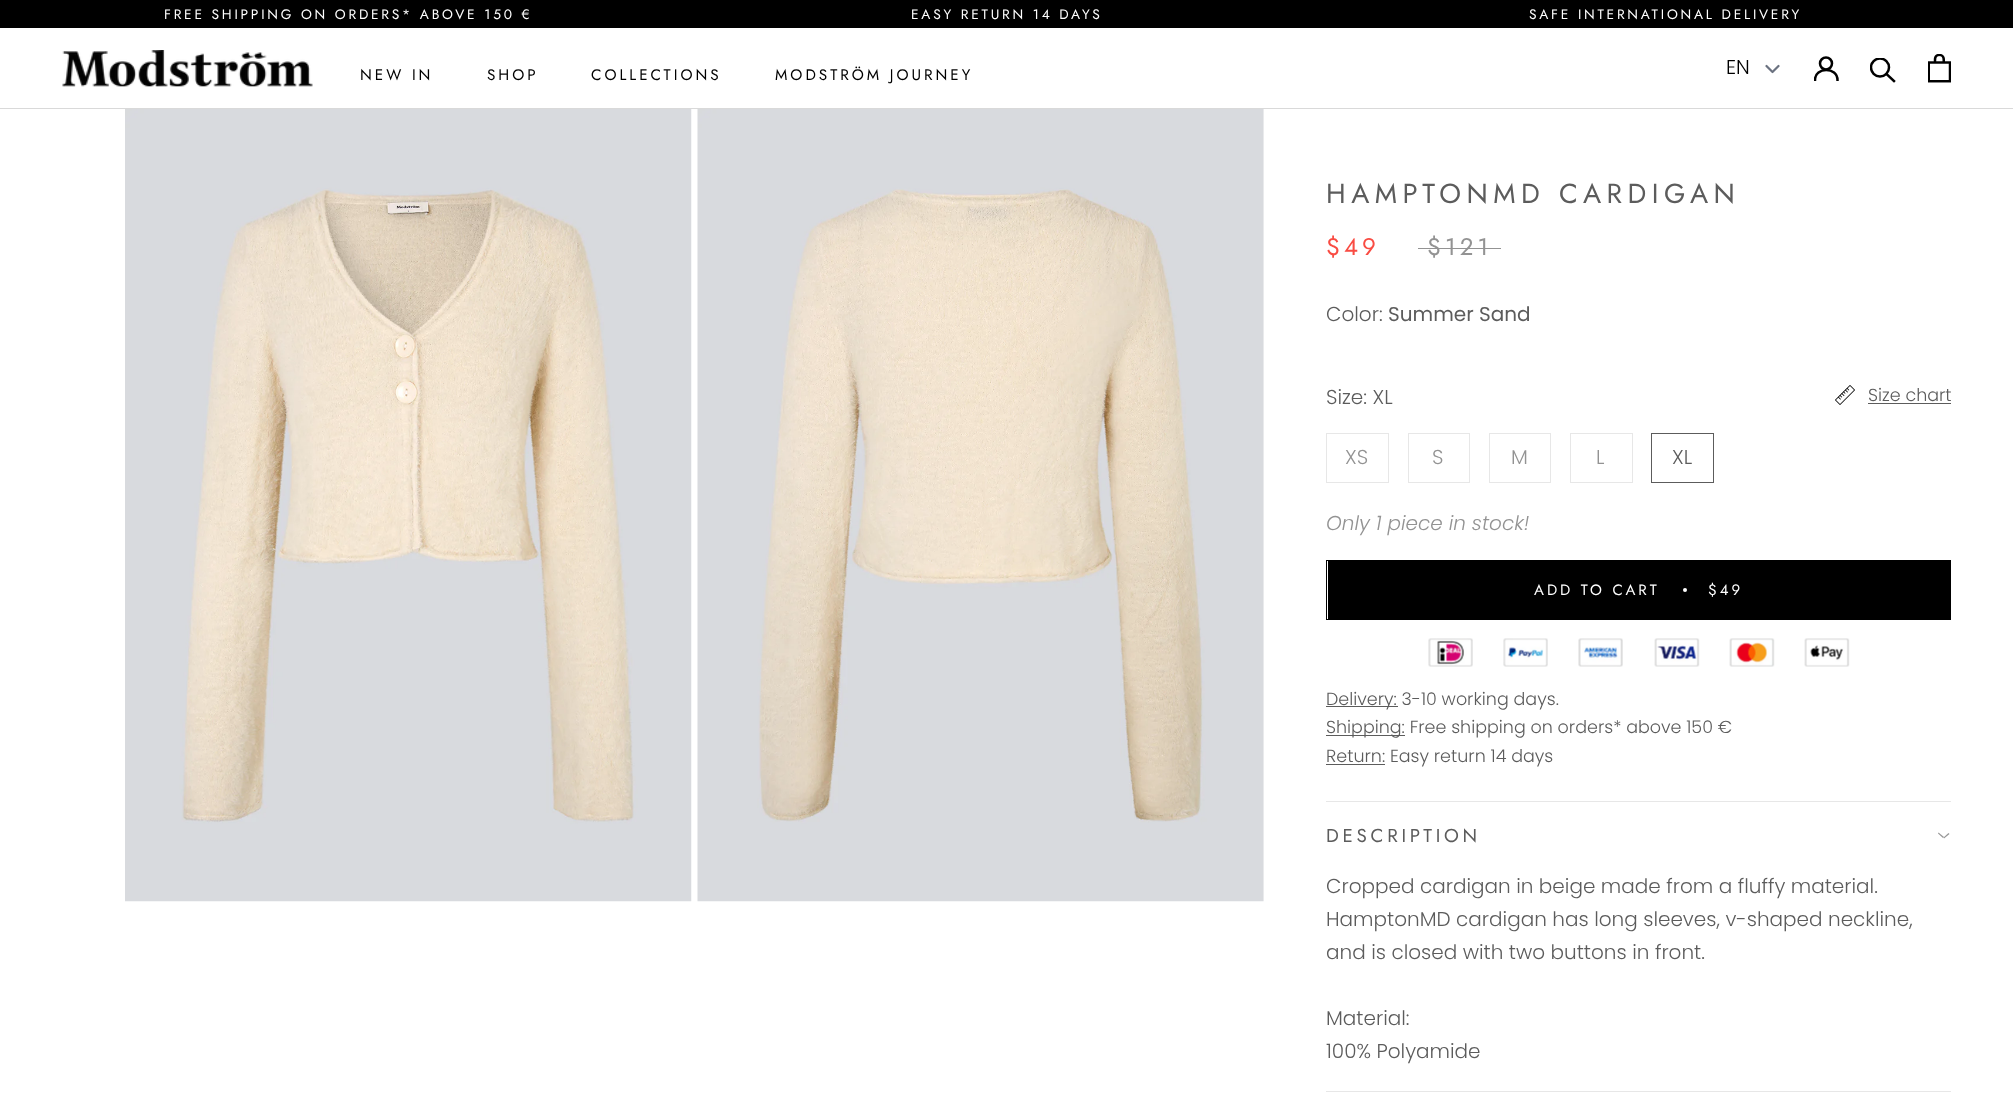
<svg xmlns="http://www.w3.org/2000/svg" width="2013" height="1113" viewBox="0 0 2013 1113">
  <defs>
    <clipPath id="clip1"><rect x="1814" y="56" width="25" height="25"/></clipPath>
    <clipPath id="clip2"><rect x="1870" y="58" width="26" height="26"/></clipPath>
  </defs>
  <rect width="100%" height="100%" fill="rgb(255,255,255)"/>
  <rect x="0" y="0" width="2013" height="28" fill="rgb(0,0,0)"/>
  <g font-family="Jost" font-size="13.75" letter-spacing="2.75" fill="rgb(255,255,255)">
    <text x="164" y="19">FREE SHIPPING ON ORDERS* ABOVE 150 €</text>
    <text x="911" y="19">EASY RETURN 14 DAYS</text>
    <text x="1529" y="19">SAFE INTERNATIONAL DELIVERY</text>
  </g>
  <rect x="0" y="108" width="2013" height="1" fill="rgb(217,217,217)"/>
  <image x="62" y="50" width="251" height="37" href="pic1.png"/>
  <g font-family="Jost" font-size="15.25" letter-spacing="3" fill="rgb(0,0,0)">
    <text x="360" y="80">NEW IN</text>
    <text x="487" y="80">SHOP</text>
    <text x="591" y="80">COLLECTIONS</text>
    <text x="775" y="80">MODSTRÖM JOURNEY</text>
  </g>
  <path d="M1766.5 66L1772.5 72L1778.5 66" fill="none" stroke="rgb(107,114,128)" stroke-width="2.2" stroke-linecap="round" stroke-linejoin="round"/>
  <text x="1726" y="74" font-family="Poppins" font-size="20" font-weight="300" fill="rgb(0,0,0)">EN</text>
  <g clip-path="url(#clip1)">
    <path d="M1815 80C1815 66.5 1837.5 66.5 1837.5 80" fill="none" stroke="rgb(0,0,0)" stroke-width="2.5" stroke-linecap="square"/>
  </g>
  <circle cx="1826" cy="63.5" r="6" fill="none" stroke="rgb(0,0,0)" stroke-width="2.5"/>
  <path d="M1894 81L1886.5 74" fill="none" stroke="rgb(0,0,0)" stroke-width="2.5" stroke-linecap="square"/>
  <g clip-path="url(#clip2)">
    <circle cx="1880" cy="67.5" r="9" fill="none" stroke="rgb(0,0,0)" stroke-width="2.5"/>
  </g>
  <image x="1928" y="54" width="23" height="29" href="pic2.png"/>
  <image x="125" y="109" width="567" height="793" href="pic3.png"/>
  <image x="697" y="109" width="567" height="793" href="pic4.png"/>
  <text x="1326" y="203" font-family="Jost" font-size="27.5" letter-spacing="5.5" fill="rgb(92,92,92)">HAMPTONMD CARDIGAN</text>
  <text x="1326" y="255" font-family="Jost" font-size="24" letter-spacing="4" fill="rgb(249,76,67)">$49</text>
  <text x="1427" y="255" font-family="Jost" font-size="24" letter-spacing="4" fill="rgb(147,147,147)">$121</text>
  <rect x="1418" y="248" width="83" height="1" fill="rgb(147,147,147)"/>
  <text x="1326" y="321" font-family="Poppins" font-size="20" font-weight="300" fill="rgb(92,92,92)">Color:</text>
  <text x="1388" y="321" font-family="Poppins" font-size="20" fill="rgb(92,92,92)">Summer Sand</text>
  <text x="1326" y="404" font-family="Poppins" font-size="20" font-weight="300" fill="rgb(92,92,92)">Size: XL</text>
  <image x="1835" y="385" width="20" height="20" href="pic5.png"/>
  <text x="1868" y="401" font-family="Poppins" font-size="17.5" font-weight="300" fill="rgb(92,92,92)">Size chart</text>
  <rect x="1868" y="403" width="83" height="1" fill="rgb(92,92,92)"/>
  <rect x="1326.5" y="433.5" width="62" height="49" fill="none" stroke="rgb(231,231,231)"/>
  <text x="1345" y="464" font-family="Poppins" font-size="20" font-weight="300" fill="rgb(147,147,147)">XS</text>
  <rect x="1408.5" y="433.5" width="61" height="49" fill="none" stroke="rgb(231,231,231)"/>
  <text x="1432" y="464" font-family="Poppins" font-size="20" font-weight="300" fill="rgb(147,147,147)">S</text>
  <rect x="1489.5" y="433.5" width="61" height="49" fill="none" stroke="rgb(231,231,231)"/>
  <text x="1511" y="464" font-family="Poppins" font-size="20" font-weight="300" fill="rgb(147,147,147)">M</text>
  <rect x="1570.5" y="433.5" width="62" height="49" fill="none" stroke="rgb(231,231,231)"/>
  <text x="1596" y="464" font-family="Poppins" font-size="20" font-weight="300" fill="rgb(147,147,147)">L</text>
  <rect x="1651.5" y="433.5" width="62" height="49" fill="none" stroke="rgb(92,92,92)"/>
  <text x="1672" y="464" font-family="Poppins" font-size="20" font-weight="300" fill="rgb(92,92,92)">XL</text>
  <text x="1326" y="530" font-family="Poppins" font-size="20" font-weight="300" font-style="italic" fill="rgb(147,147,147)">Only 1 piece in stock!</text>
  <rect x="1326.5" y="560.5" width="624" height="59" fill="none" stroke="rgb(0,0,0)"/>
  <rect x="1328" y="561" width="622" height="58" fill="rgb(0,0,0)"/>
  <text x="1534" y="595" font-family="Jost" font-size="15" letter-spacing="3" fill="rgb(255,255,255)">ADD TO CART</text>
  <circle cx="1685" cy="590" r="2" fill="rgb(255,255,255)"/>
  <text x="1708" y="595" font-family="Jost" font-size="15" letter-spacing="3" fill="rgb(255,255,255)">$49</text>
  <image x="1428" y="638" width="45" height="29" href="pic6.png"/>
  <image x="1503" y="638" width="45" height="29" href="pic7.png"/>
  <image x="1578" y="638" width="45" height="29" href="pic8.png"/>
  <image x="1654" y="638" width="46" height="29" href="pic9.png"/>
  <image x="1729" y="638" width="46" height="29" href="pic10.png"/>
  <image x="1804" y="638" width="46" height="29" href="pic11.png"/>
  <rect x="1326" y="706" width="72" height="1" fill="rgb(92,92,92)"/>
  <text x="1326" y="705" font-family="Poppins" font-size="17.5" font-weight="300" fill="rgb(92,92,92)">Delivery: 3-10 working days.</text>
  <rect x="1326" y="735" width="79" height="1" fill="rgb(92,92,92)"/>
  <text x="1326" y="733" font-family="Poppins" font-size="17.5" font-weight="300" fill="rgb(92,92,92)">Shipping: Free shipping on orders* above 150 €</text>
  <rect x="1326" y="764" width="59" height="1" fill="rgb(92,92,92)"/>
  <text x="1326" y="762" font-family="Poppins" font-size="17.5" font-weight="300" fill="rgb(92,92,92)">Return: Easy return 14 days</text>
  <rect x="1326" y="801" width="625" height="1" fill="rgb(231,231,231)"/>
  <rect x="1326" y="1091" width="625" height="1" fill="rgb(231,231,231)"/>
  <text x="1326" y="842" font-family="Jost" font-size="18.75" letter-spacing="3.75" fill="rgb(92,92,92)">DESCRIPTION</text>
  <path d="M1949.5 834L1944 838.5L1943.5 837.5L1948.5 833Z" fill="rgb(151,151,151)"/>
  <path d="M1938.5 832.5L1944 837L1943 838L1938 833.5Z" fill="rgb(151,151,151)"/>
  <g font-family="Poppins" font-size="20" font-weight="300" fill="rgb(92,92,92)">
    <text>
      <tspan x="1326" y="893">Cropped cardigan in beige made from a fluffy material.</tspan>
      <tspan x="1326" y="926">HamptonMD cardigan has long sleeves, v-shaped neckline,</tspan>
      <tspan x="1326" y="959">and is closed with two buttons in front.</tspan>
    </text>
    <text>
      <tspan x="1326" y="1025">Material:</tspan>
      <tspan x="1326" y="1058">100% Polyamide</tspan>
    </text>
  </g>
</svg>
